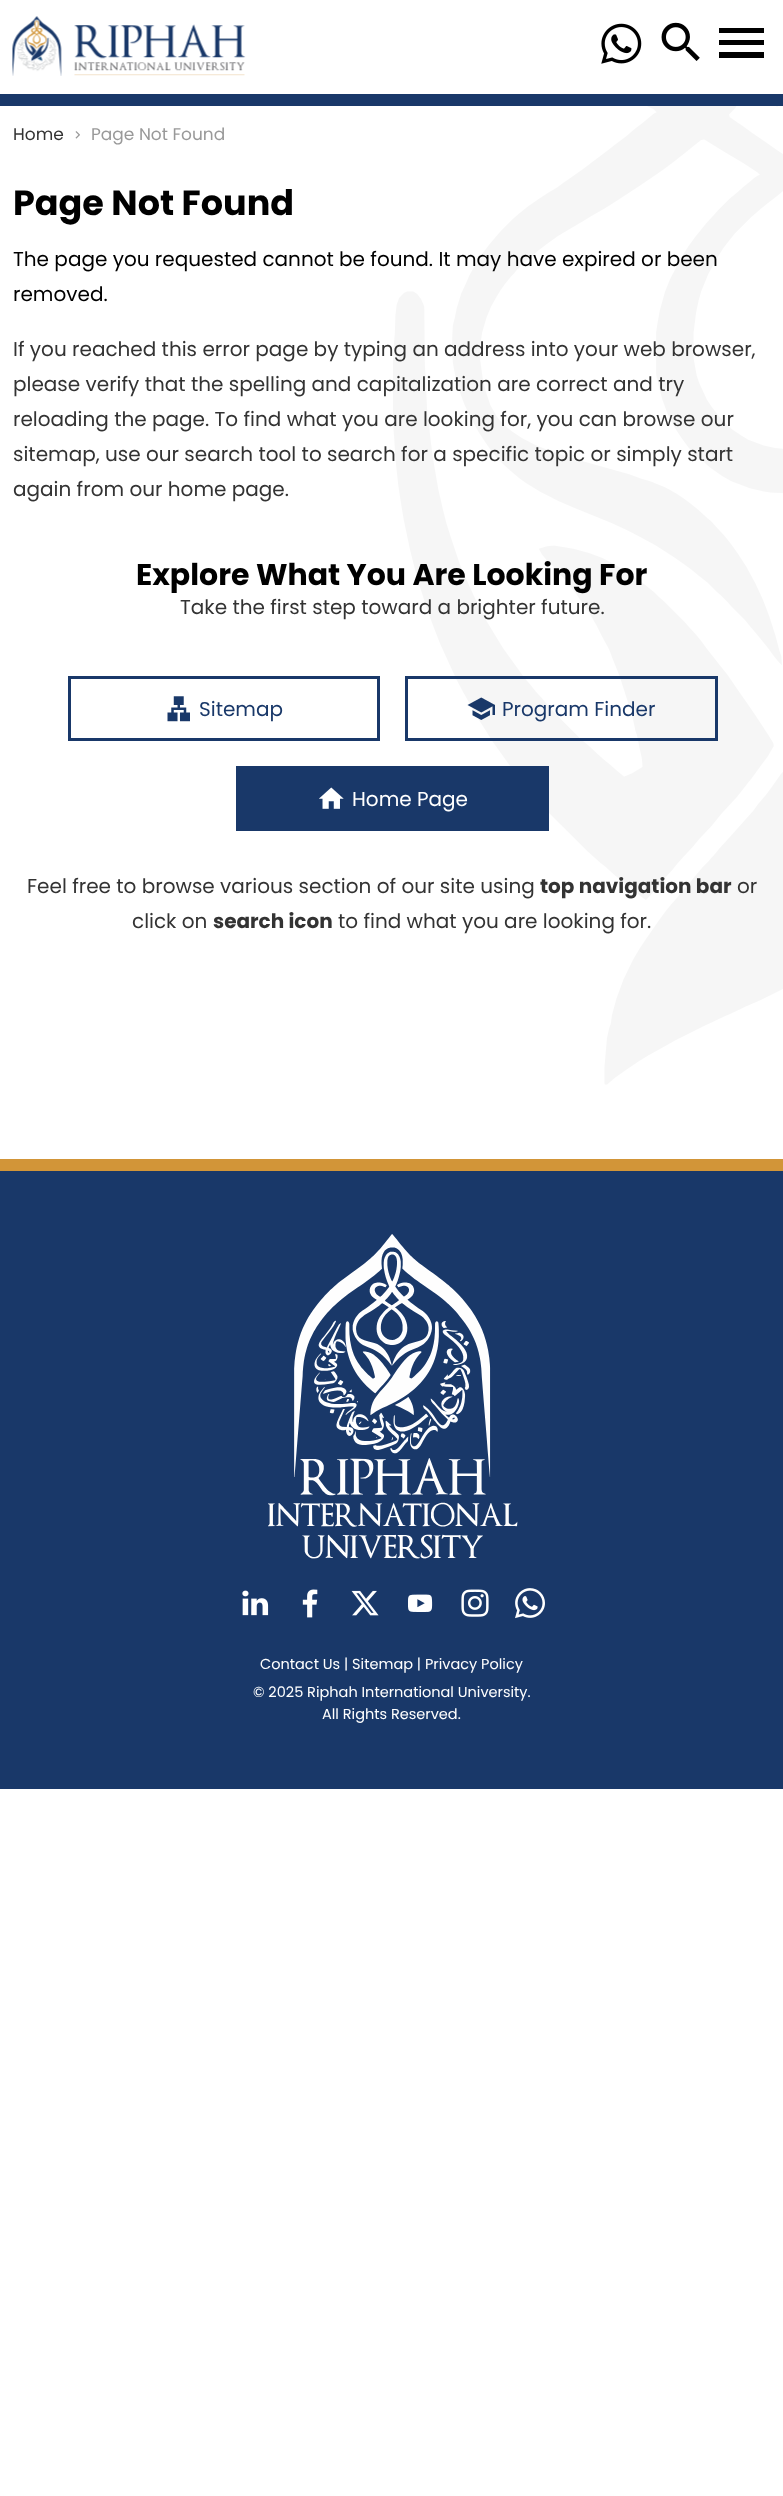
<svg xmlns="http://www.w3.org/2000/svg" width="783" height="2496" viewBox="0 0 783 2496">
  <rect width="100%" height="100%" fill="rgb(255,255,255)"/>
  <rect x="0" y="94" width="783" height="12" fill="rgb(25,56,105)"/>
  <image x="12" y="16" width="234" height="60" href="pic1.png"/>
  <image x="601" y="23" width="41" height="41" href="pic2.png"/>
  <image x="661" y="22" width="39" height="39" href="pic3.png"/>
  <path d="M719 28H764V33H719ZM719 45V40H764V45ZM719 58V52H764V58Z" fill="rgb(0,0,0)"/>
  <image x="393" y="106" width="390" height="979" href="pic4.png"/>
  <text x="13" y="140" font-family="Poppins" font-size="17" fill="rgb(51,51,51)">Home</text>
  <image x="75" y="131" width="5" height="8" href="pic5.png"/>
  <text x="91" y="140" font-family="Poppins" font-size="17" fill="rgb(153,153,153)">Page Not Found</text>
  <text x="13" y="215" font-family="Poppins" font-size="35" font-weight="bold" fill="rgb(0,0,0)">Page Not Found</text>
  <g font-family="Poppins" font-size="20" fill="rgb(0,0,0)">
    <text>
      <tspan x="13" y="266">The page you requested cannot be found. It may have expired or been</tspan>
      <tspan x="13" y="301">removed.</tspan>
    </text>
  </g>
  <g font-family="Poppins" font-size="20" fill="rgb(51,51,51)">
    <text>
      <tspan x="13" y="356">If you reached this error page by typing an address into your web browser,</tspan>
      <tspan x="13" y="391">please verify that the spelling and capitalization are correct and try</tspan>
      <tspan x="13" y="426">reloading the page. To find what you are looking for, you can browse our</tspan>
      <tspan x="13" y="461">sitemap, use our search tool to search for a specific topic or simply start</tspan>
      <tspan x="13" y="496">again from our home page.</tspan>
    </text>
  </g>
  <text x="136" y="585" font-family="Poppins" font-size="30" font-weight="bold" fill="rgb(0,0,0)">Explore What You Are Looking For</text>
  <text x="180" y="614" font-family="Poppins" font-size="20" fill="rgb(51,51,51)">Take the first step toward a brighter future.</text>
  <rect x="69.5" y="677.5" width="309" height="62" fill="none" stroke="rgb(25,56,105)" stroke-width="3"/>
  <image x="167" y="696" width="23" height="26" href="pic6.png"/>
  <text x="199" y="716" font-family="Poppins" font-size="20" fill="rgb(25,56,105)">Sitemap</text>
  <rect x="406.5" y="677.5" width="310" height="62" fill="none" stroke="rgb(25,56,105)" stroke-width="3"/>
  <image x="467" y="697" width="28" height="23" href="pic7.png"/>
  <text x="502" y="716" font-family="Poppins" font-size="20" fill="rgb(25,56,105)">Program Finder</text>
  <rect x="236" y="766" width="313" height="65" fill="rgb(25,56,105)"/>
  <image x="319" y="787" width="25" height="22" href="pic8.png"/>
  <text x="352" y="806" font-family="Poppins" font-size="20" fill="rgb(255,255,255)">Home Page</text>
  <text x="27" y="893" font-family="Poppins" font-size="20" fill="rgb(51,51,51)">Feel free to browse various section of our site using</text>
  <text x="540" y="893" font-family="Poppins" font-size="20" font-weight="bold" fill="rgb(51,51,51)">top navigation bar</text>
  <g font-family="Poppins" font-size="20" fill="rgb(51,51,51)">
    <text x="737" y="893">or</text>
    <text x="132" y="928">click on</text>
  </g>
  <text x="213" y="928" font-family="Poppins" font-size="20" font-weight="bold" fill="rgb(51,51,51)">search icon</text>
  <text x="338" y="928" font-family="Poppins" font-size="20" fill="rgb(51,51,51)">to find what you are looking for.</text>
  <rect x="0" y="1171" width="783" height="618" fill="rgb(25,56,105)"/>
  <rect x="0" y="1159" width="783" height="12" fill="rgb(210,149,56)"/>
  <image x="268" y="1234" width="250" height="325" href="pic9.png"/>
  <image x="242" y="1590" width="27" height="26" href="pic10.png"/>
  <image x="302" y="1589" width="16" height="29" href="pic11.png"/>
  <image x="351" y="1590" width="28" height="26" href="pic12.png"/>
  <image x="408" y="1594" width="25" height="18" href="pic13.png"/>
  <image x="461" y="1589" width="28" height="28" href="pic14.png"/>
  <image x="515" y="1588" width="30" height="31" href="pic15.png"/>
  <g font-family="Poppins" font-size="14.5" fill="rgb(255,255,255)">
    <text x="260" y="1669">Contact Us | Sitemap | Privacy Policy</text>
    <text x="253" y="1697">© 2025 Riphah International University.</text>
    <text x="322" y="1719">All Rights Reserved.</text>
  </g>
</svg>
